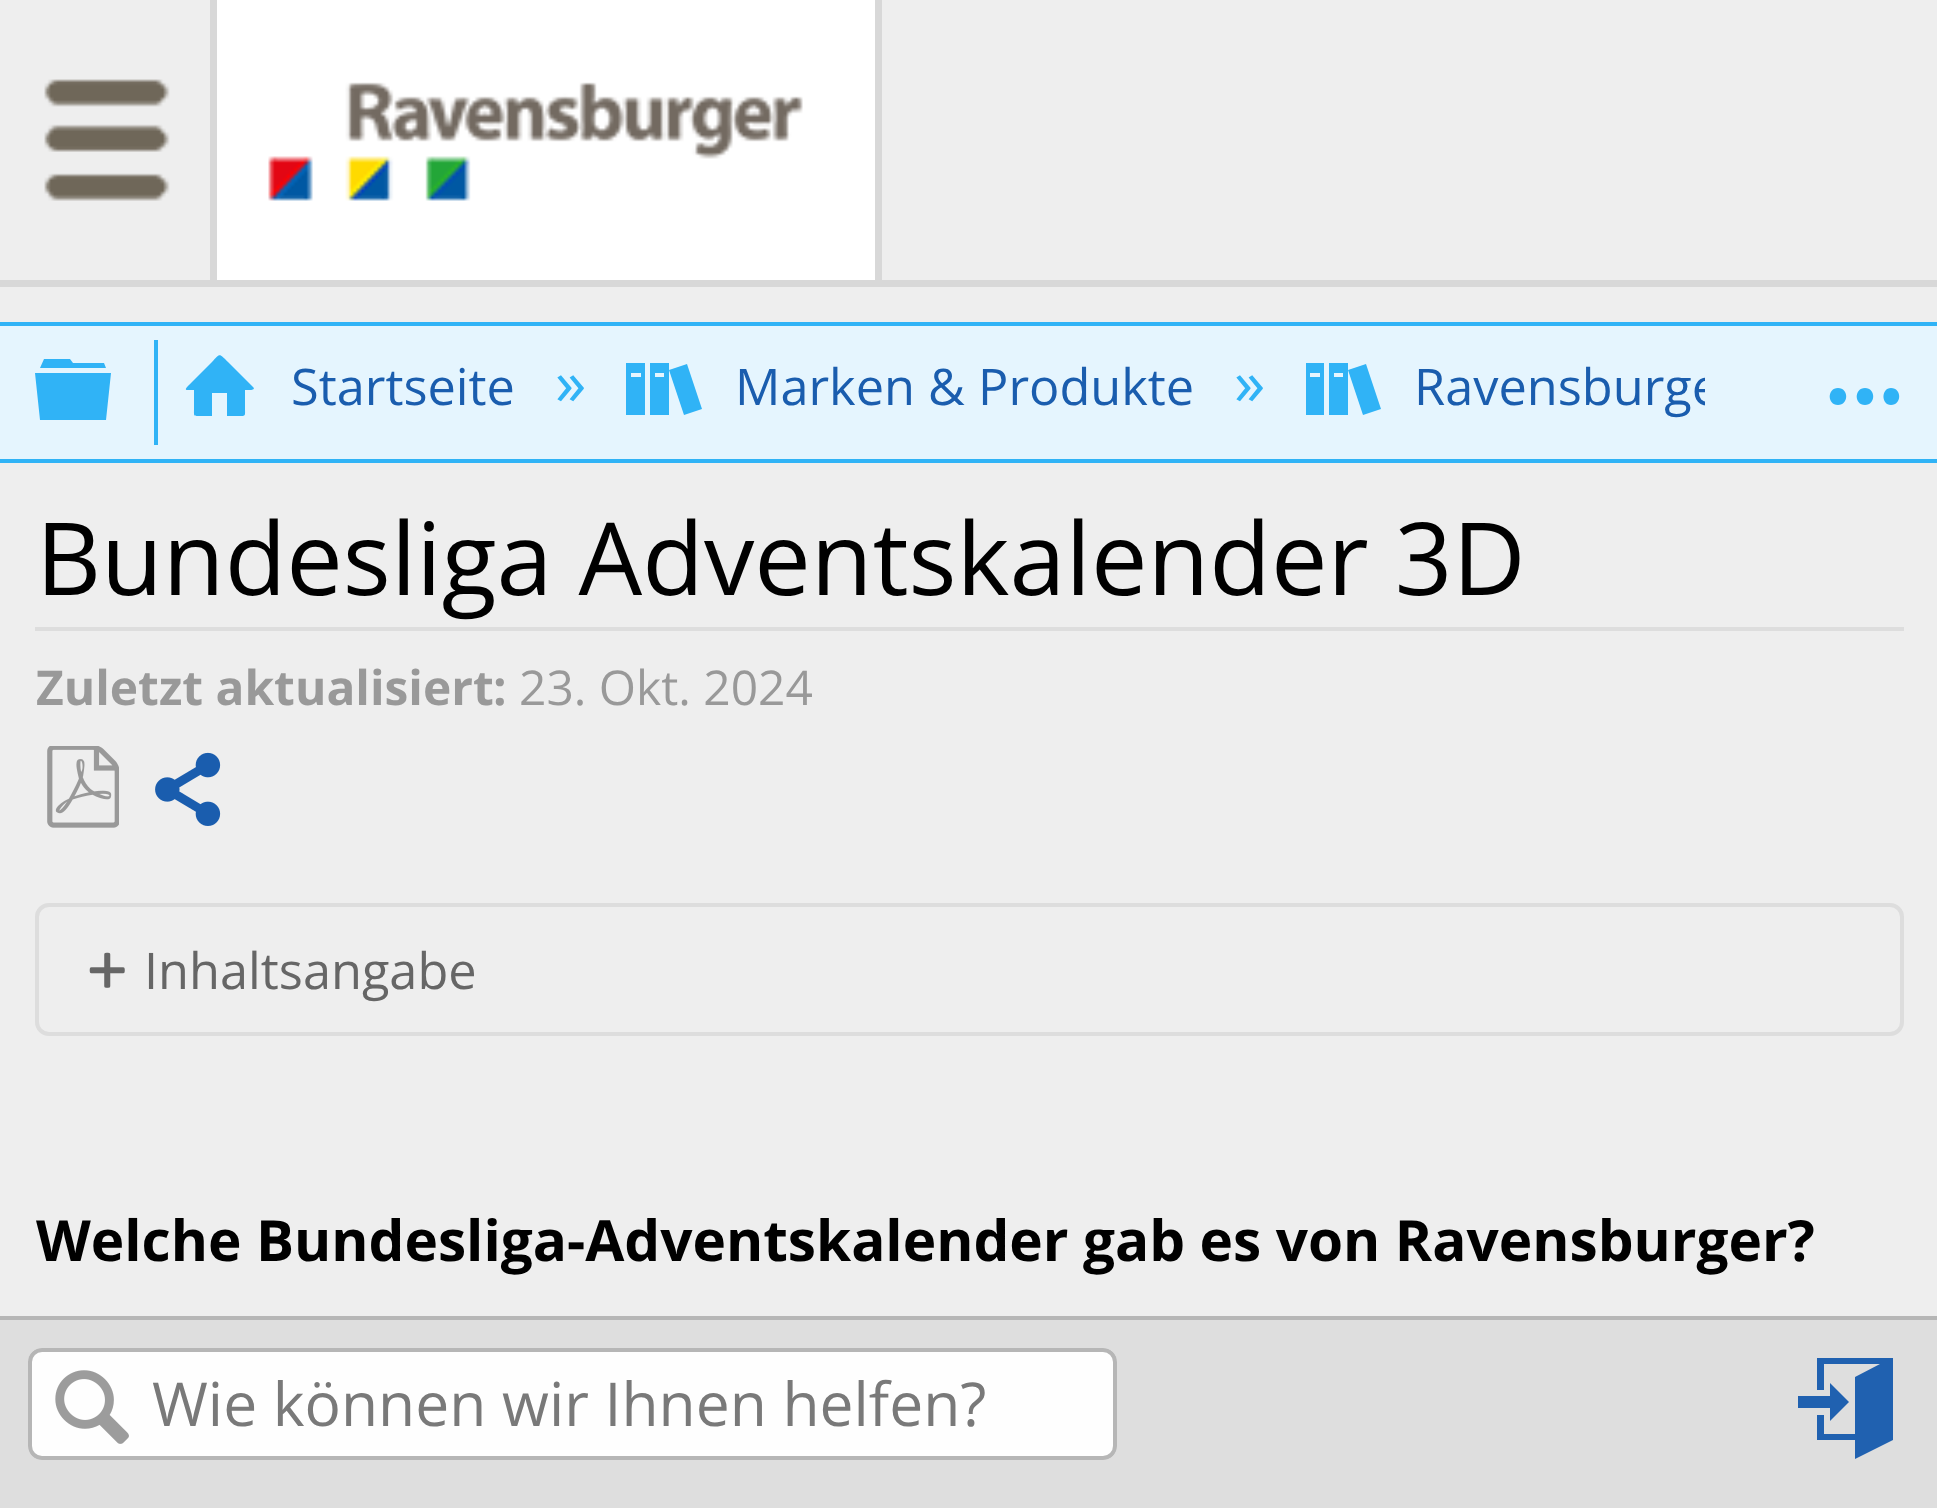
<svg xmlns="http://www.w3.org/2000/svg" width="1937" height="1508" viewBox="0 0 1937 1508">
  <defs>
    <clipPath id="clip1"><rect x="158" y="340" width="1547" height="105"/></clipPath>
  </defs>
  <rect width="100%" height="100%" fill="rgb(238,238,238)"/>
  <rect x="0" y="1320" width="1937" height="188" fill="rgb(222,222,222)"/>
  <rect x="0" y="280" width="1937" height="7" fill="rgb(216,216,216)"/>
  <image x="44" y="79" width="126" height="122" href="pic1.png"/>
  <rect x="210" y="0" width="7" height="280" fill="rgb(216,216,216)"/>
  <rect x="217" y="0" width="658" height="280" fill="rgb(255,255,255)"/>
  <image x="268" y="82" width="535" height="119" href="pic2.png"/>
  <rect x="875" y="0" width="7" height="280" fill="rgb(216,216,216)"/>
  <rect x="0" y="326" width="1937" height="133" fill="rgb(229,245,254)"/>
  <rect x="0" y="322" width="1937" height="4" fill="rgb(48,179,246)"/>
  <rect x="0" y="459" width="1937" height="4" fill="rgb(48,179,246)"/>
  <path d="M35 373H111L106 420H40ZM104 363L106 368H40L44 359H70L73 363Z" fill="rgb(48,179,246)"/>
  <rect x="154" y="340" width="4" height="105" fill="rgb(48,179,246)"/>
  <text x="291" y="405" font-family="Open Sans" font-size="50.5" fill="rgb(26,93,174)">Startseite</text>
  <path d="M253 387L228 362C219 353 220 353 212 362L192 382C183 391 184 390 194 390V409C194 416 193 416 200 416H212V393H227V416H240C246 416 245 415 245 409V390C246 390 257 391 253 387Z" fill="rgb(48,179,246)"/>
  <text x="555" y="405" font-family="Open Sans" font-size="63" fill="rgb(48,179,246)">»</text>
  <text x="735" y="405" font-family="Open Sans" font-size="50.5" fill="rgb(26,93,174)">Marken &amp; Produkte</text>
  <path d="M669 370L687 364L702 409L684 415ZM626 415H645V363H626ZM631 373H641V377H631ZM650 415H669V363H650ZM655 373H664V377H655Z" fill="rgb(48,179,246)"/>
  <text x="1234" y="405" font-family="Open Sans" font-size="63" fill="rgb(48,179,246)">»</text>
  <g clip-path="url(#clip1)">
    <text x="1414" y="405" font-family="Open Sans" font-size="50.5" fill="rgb(26,93,174)">Ravensburge</text>
  </g>
  <path d="M1348 370L1366 364L1381 409L1363 415ZM1306 415H1324V363H1306ZM1310 373H1320V377H1310ZM1329 415H1348V363H1329ZM1334 373H1343V377H1334Z" fill="rgb(48,179,246)"/>
  <path d="M1838 388C1827 388 1827 405 1838 405C1849 405 1849 388 1838 388ZM1865 388C1854 388 1854 405 1865 405C1876 405 1876 388 1865 388ZM1891 388C1881 388 1881 405 1891 405C1902 405 1902 388 1891 388Z" fill="rgb(48,179,246)"/>
  <rect x="0" y="1316" width="1937" height="4" fill="rgb(182,182,182)"/>
  <rect x="28" y="1348" width="1089" height="112" rx="14" fill="rgb(254,254,254)"/>
  <rect x="30" y="1350" width="1085" height="108" rx="12" fill="none" stroke="rgba(180,180,180,0.97)" stroke-width="4"/>
  <image x="55" y="1370" width="74" height="74" href="pic3.png"/>
  <text x="152" y="1426" font-family="Open Sans" font-size="60.5" fill="rgb(121,121,121)">Wie können wir Ihnen helfen?</text>
  <path d="M1830 1408H1798V1396H1830V1383L1849 1402L1830 1421ZM1893 1358V1440L1855 1459V1440H1817V1415H1824V1434H1855V1377L1880 1364H1824V1390H1817V1358Z" fill="rgb(32,97,176)"/>
  <rect x="35" y="627" width="1869" height="4" fill="rgb(221,221,221)"/>
  <text x="36" y="595" font-family="Open Sans" font-size="100.75" fill="rgb(0,0,0)">Bundesliga Adventskalender 3D</text>
  <g font-family="Open Sans" font-size="47.9" font-weight="bold" fill="rgb(153,153,153)">
    <text x="36" y="705">Zuletzt aktualisiert</text>
    <text x="493" y="705">:</text>
  </g>
  <text x="519" y="705" font-family="Open Sans" font-size="47.9" fill="rgb(153,153,153)">23. Okt. 2024</text>
  <image x="47" y="746" width="72" height="82" href="pic4.png"/>
  <image x="155" y="752" width="66" height="74" href="pic5.png"/>
  <rect x="37" y="905" width="1865" height="129" rx="12" fill="none" stroke="rgb(221,221,221)" stroke-width="4"/>
  <image x="89" y="952" width="36" height="36" href="pic6.png"/>
  <text x="144" y="989" font-family="Open Sans" font-size="50.5" fill="rgb(102,102,102)">Inhaltsangabe</text>
  <text x="36" y="1261" word-spacing="-0.25" font-family="Open Sans" font-size="56.7" font-weight="bold" fill="rgb(0,0,0)">Welche Bundesliga-Adventskalender gab es von Ravensburger?</text>
</svg>
